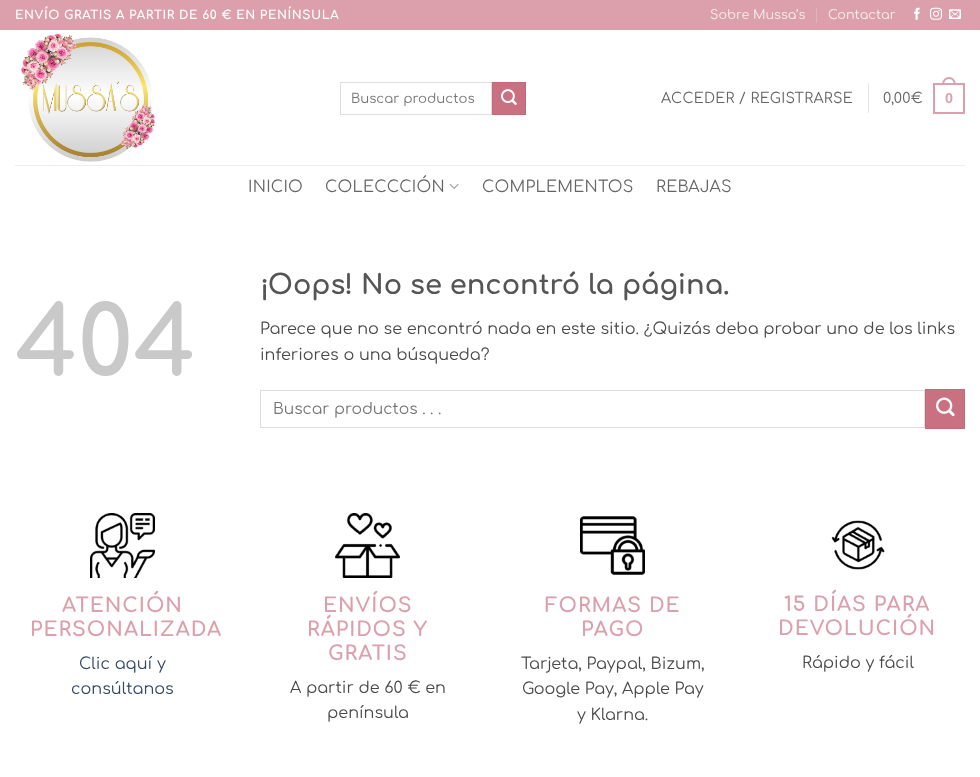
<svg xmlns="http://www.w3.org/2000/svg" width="980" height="777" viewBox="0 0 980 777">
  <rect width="100%" height="100%" fill="rgb(255,255,255)"/>
  <rect x="0" y="0" width="980" height="30" fill="rgb(220,160,172)"/>
  <text x="15" y="19" font-family="Comfortaa" font-size="12" font-weight="bold" letter-spacing="0.6" fill="rgb(255,255,255)">ENVÍO GRATIS A PARTIR DE 60 € EN PENÍNSULA</text>
  <text x="710" y="19" font-family="Comfortaa" font-size="12.75" fill="rgb(248,236,238)">Sobre Mussa’s</text>
  <rect x="816" y="8" width="1" height="15" fill="rgb(227,179,189)"/>
  <text x="828" y="19" font-family="Comfortaa" font-size="12.75" fill="rgb(248,236,238)">Contactar</text>
  <image x="914" y="7" width="6" height="13" href="pic1.png"/>
  <image x="930" y="7" width="12" height="13" href="pic2.png"/>
  <image x="949" y="9" width="12" height="10" href="pic3.png"/>
  <image x="21" y="33" width="134" height="129" href="pic4.png"/>
  <rect x="340.5" y="82.5" width="151" height="32" fill="none" stroke="rgb(221,221,221)"/>
  <text x="351" y="103" font-family="Comfortaa" font-size="13.25" fill="rgb(117,117,117)">Buscar productos</text>
  <rect x="492.5" y="82.5" width="33" height="32" fill="rgb(202,113,129)" stroke="rgb(192,107,123)"/>
  <image x="501" y="89" width="16" height="16" href="pic5.png"/>
  <text x="661" y="103" font-family="Comfortaa" font-size="14.4" letter-spacing="0.25" fill="rgb(101,101,101)">ACCEDER / REGISTRARSE</text>
  <rect x="868" y="83" width="1" height="30" fill="rgb(230,230,230)"/>
  <text x="883" y="103" font-family="Comfortaa" font-size="14.4" letter-spacing="0.25" fill="rgb(101,101,101)">0,00€</text>
  <rect x="934" y="84" width="30" height="29" fill="none" stroke="rgb(220,160,172)" stroke-width="2"/>
  <path d="M949 77C953.5 77 956 81 956 85H942C942 81 944.5 77 949 77ZM949 79C952.5 79 954 82 954 85H944C944 82 945.5 79 949 79Z" fill="rgb(220,160,172)" fill-rule="evenodd"/>
  <text x="945" y="103" font-family="Liberation Sans" font-size="14.4" font-weight="bold" letter-spacing="0.25" fill="rgb(220,160,172)">0</text>
  <rect x="15" y="165" width="950" height="1" fill="rgb(237,237,237)"/>
  <g font-family="Comfortaa" font-size="16" letter-spacing="0.25" fill="rgb(101,101,101)">
    <text x="248" y="192">INICIO</text>
    <text x="325" y="192">COLECCCIÓN</text>
  </g>
  <image x="449" y="183" width="10" height="6" href="pic6.png"/>
  <g font-family="Comfortaa" font-size="16" letter-spacing="0.25" fill="rgb(101,101,101)">
    <text x="482" y="192">COMPLEMENTOS</text>
    <text x="656" y="192">REBAJAS</text>
  </g>
  <text x="15" y="376" font-family="Comfortaa" font-size="96" font-weight="bold" fill="rgb(201,201,201)">404</text>
  <text x="260" y="294" font-family="Comfortaa" font-size="27.25" font-weight="bold" fill="rgb(85,85,85)">¡Oops! No se encontró la página.</text>
  <g font-family="Comfortaa" font-size="16" fill="rgb(74,74,74)">
    <text>
      <tspan x="260" y="334">Parece que no se encontró nada en este sitio. ¿Quizás deba probar uno de los links</tspan>
      <tspan x="260" y="360">inferiores o una búsqueda?</tspan>
    </text>
  </g>
  <rect x="260.5" y="390.5" width="664" height="37" fill="none" stroke="rgb(221,221,221)"/>
  <text x="273" y="414" font-family="Comfortaa" font-size="15.5" fill="rgb(117,117,117)">Buscar productos . . .</text>
  <rect x="925.5" y="389.5" width="39" height="39" fill="rgb(202,113,129)" stroke="rgb(192,107,123)"/>
  <image x="936" y="397" width="19" height="20" href="pic7.png"/>
  <image x="90" y="513" width="65" height="65" href="pic8.png"/>
  <g font-family="Comfortaa" font-size="20" font-weight="bold" letter-spacing="1" fill="rgb(220,160,172)">
    <text x="62" y="612">ATENCIÓN</text>
    <text x="30" y="636">PERSONALIZADA</text>
  </g>
  <g font-family="Comfortaa" font-size="16" fill="rgb(51,72,98)">
    <text x="79" y="669">Clic aquí y</text>
    <text x="71" y="694">consúltanos</text>
  </g>
  <image x="335" y="513" width="65" height="65" href="pic9.png"/>
  <g font-family="Comfortaa" font-size="20" font-weight="bold" letter-spacing="1" fill="rgb(220,160,172)">
    <text x="323" y="612">ENVÍOS</text>
    <text x="307" y="636">RÁPIDOS Y</text>
    <text x="328" y="660">GRATIS</text>
  </g>
  <g font-family="Comfortaa" font-size="16" fill="rgb(74,74,74)">
    <text x="290" y="693">A partir de 60 € en</text>
    <text x="327" y="718">península</text>
  </g>
  <image x="580" y="516" width="65" height="59" href="pic10.png"/>
  <g font-family="Comfortaa" font-size="20" font-weight="bold" letter-spacing="1" fill="rgb(220,160,172)">
    <text x="545" y="612">FORMAS DE</text>
    <text x="581" y="636">PAGO</text>
  </g>
  <g font-family="Comfortaa" font-size="16" fill="rgb(74,74,74)">
    <text x="521" y="669">Tarjeta, Paypal, Bizum,</text>
    <text x="522" y="694">Google Pay, Apple Pay</text>
    <text x="577" y="720">y Klarna.</text>
  </g>
  <image x="831" y="520" width="54" height="50" href="pic11.png"/>
  <g font-family="Comfortaa" font-size="20" font-weight="bold" letter-spacing="1" fill="rgb(220,160,172)">
    <text x="784" y="611">15 DÍAS PARA</text>
    <text x="778" y="635">DEVOLUCIÓN</text>
  </g>
  <text x="802" y="668" font-family="Comfortaa" font-size="16" fill="rgb(74,74,74)">Rápido y fácil</text>
</svg>
